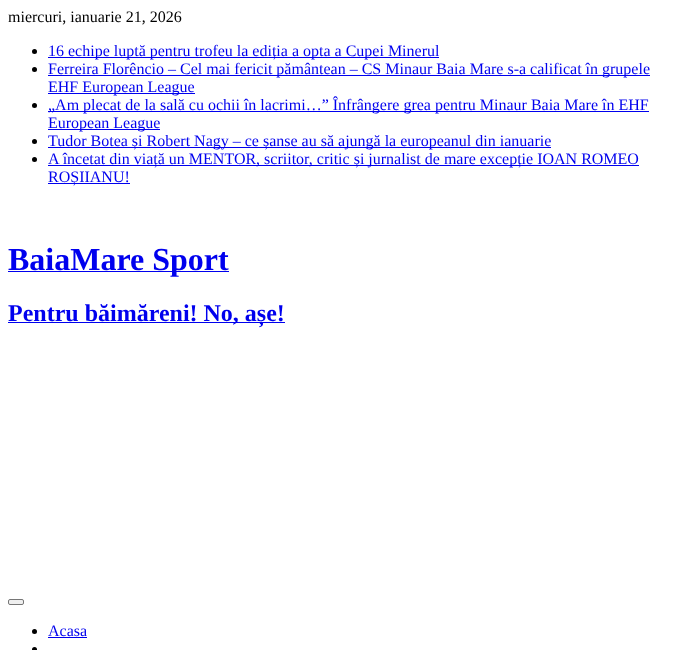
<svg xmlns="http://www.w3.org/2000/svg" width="685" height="650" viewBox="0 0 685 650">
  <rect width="100%" height="100%" fill="rgb(255,255,255)"/>
  <text x="8" y="22" font-family="Liberation Serif" font-size="16" fill="rgb(0,0,0)">miercuri, ianuarie 21, 2026</text>
  <circle cx="34.5" cy="51.5" r="2.5" fill="rgb(0,0,0)"/>
  <rect x="48" y="57" width="391" height="1" fill="rgb(0,0,238)"/>
  <text x="48" y="56" font-family="Liberation Serif" font-size="16" fill="rgb(0,0,238)">16 echipe luptă pentru trofeu la ediția a opta a Cupei Minerul</text>
  <circle cx="34.5" cy="69.5" r="2.5" fill="rgb(0,0,0)"/>
  <rect x="48" y="75" width="602" height="1" fill="rgb(0,0,238)"/>
  <text x="48" y="74" font-family="Liberation Serif" font-size="16" fill="rgb(0,0,238)">Ferreira Florêncio – Cel mai fericit pământean – CS Minaur Baia Mare s-a calificat în grupele</text>
  <rect x="48" y="93" width="147" height="1" fill="rgb(0,0,238)"/>
  <text x="48" y="92" font-family="Liberation Serif" font-size="16" fill="rgb(0,0,238)">EHF European League</text>
  <circle cx="34.5" cy="105.5" r="2.5" fill="rgb(0,0,0)"/>
  <rect x="48" y="111" width="601" height="1" fill="rgb(0,0,238)"/>
  <text x="48" y="110" font-family="Liberation Serif" font-size="16" fill="rgb(0,0,238)">„Am plecat de la sală cu ochii în lacrimi…” Înfrângere grea pentru Minaur Baia Mare în EHF</text>
  <rect x="48" y="129" width="112" height="1" fill="rgb(0,0,238)"/>
  <text x="48" y="128" font-family="Liberation Serif" font-size="16" fill="rgb(0,0,238)">European League</text>
  <circle cx="34.5" cy="141.5" r="2.5" fill="rgb(0,0,0)"/>
  <rect x="48" y="147" width="503" height="1" fill="rgb(0,0,238)"/>
  <text x="48" y="146" font-family="Liberation Serif" font-size="16" fill="rgb(0,0,238)">Tudor Botea și Robert Nagy – ce șanse au să ajungă la europeanul din ianuarie</text>
  <circle cx="34.5" cy="159.5" r="2.5" fill="rgb(0,0,0)"/>
  <rect x="48" y="165" width="591" height="1" fill="rgb(0,0,238)"/>
  <text x="48" y="164" font-family="Liberation Serif" font-size="16" fill="rgb(0,0,238)">A încetat din viață un MENTOR, scriitor, critic și jurnalist de mare excepție IOAN ROMEO</text>
  <rect x="48" y="183" width="82" height="1" fill="rgb(0,0,238)"/>
  <text x="48" y="182" font-family="Liberation Serif" font-size="16" fill="rgb(0,0,238)">ROȘIIANU!</text>
  <rect x="8" y="271" width="221" height="1" fill="rgb(0,0,238)"/>
  <text x="8" y="270" font-family="Liberation Serif" font-size="32" font-weight="bold" fill="rgb(0,0,238)">BaiaMare Sport</text>
  <rect x="8" y="322" width="277" height="1" fill="rgb(0,0,238)"/>
  <text x="8" y="321" font-family="Liberation Serif" font-size="24" font-weight="bold" fill="rgb(0,0,238)">Pentru băimăreni! No, așe!</text>
  <rect x="8.5" y="599.5" width="15" height="5" rx="1.5" fill="rgb(239,239,239)" stroke="rgb(118,118,118)"/>
  <circle cx="34.5" cy="631.5" r="2.5" fill="rgb(0,0,0)"/>
  <text x="48" y="636" font-family="Liberation Serif" font-size="16" fill="rgb(0,0,238)">Acasa</text>
  <rect x="48" y="637" width="39" height="1" fill="rgb(0,0,238)"/>
  <circle cx="34.5" cy="649.5" r="2.5" fill="rgb(0,0,0)"/>
</svg>
